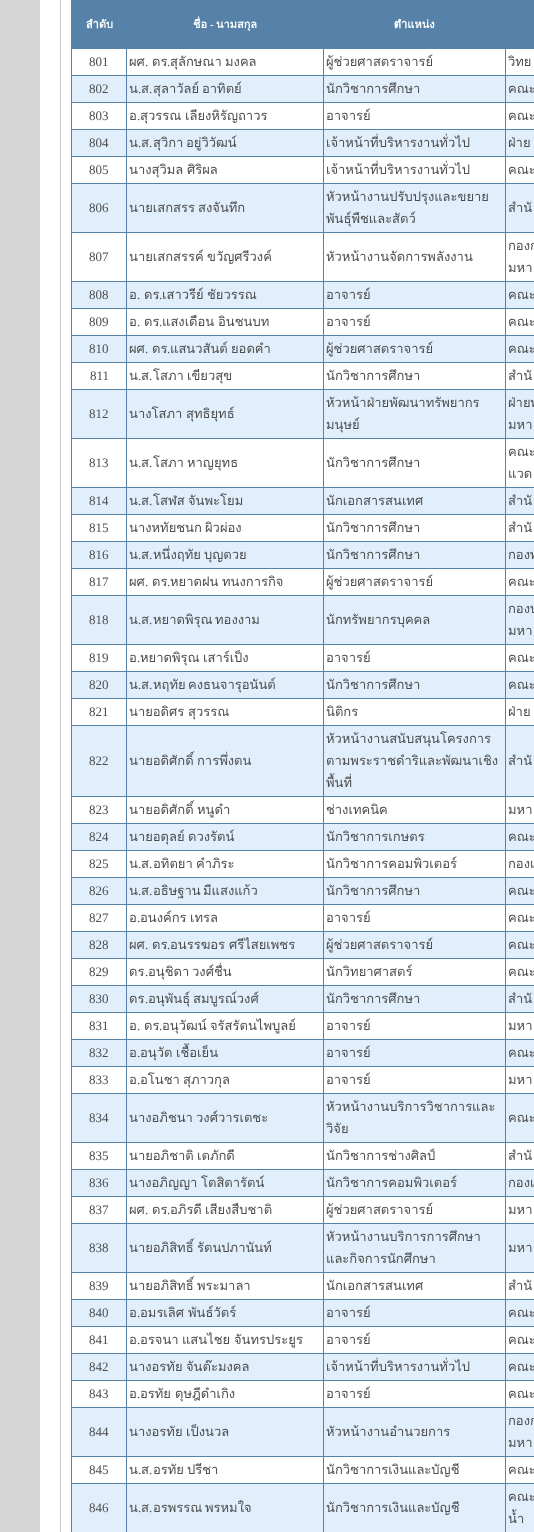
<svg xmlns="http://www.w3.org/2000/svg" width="534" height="1532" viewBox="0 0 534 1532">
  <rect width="100%" height="100%" fill="rgb(214,214,214)"/>
  <rect x="40" y="0" width="494" height="1532" fill="rgb(255,255,255)"/>
  <rect x="60.5" y="-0.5" width="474" height="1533" fill="none" stroke="rgb(200,200,200)"/>
  <rect x="72" y="0" width="462" height="49" fill="rgb(86,129,169)"/>
  <g font-family="Loma" font-size="11" font-weight="bold" fill="rgb(255,255,255)">
    <text x="86" y="28">ลำดับ</text>
    <text x="193" y="28">ชื่อ</text>
  </g>
  <text x="210" y="28" font-family="Liberation Serif" font-size="11" font-weight="bold" fill="rgb(255,255,255)">-</text>
  <g font-family="Loma" font-size="11" font-weight="bold" fill="rgb(255,255,255)">
    <text x="216" y="28">นามสกุล</text>
    <text x="394" y="28">ตำแหน่ง</text>
  </g>
  <rect x="505" y="75" width="29" height="1" fill="rgb(86,129,169)"/>
  <rect x="72" y="76" width="462" height="26" fill="rgb(225,239,252)"/>
  <rect x="505" y="102" width="29" height="1" fill="rgb(86,129,169)"/>
  <rect x="505" y="129" width="29" height="1" fill="rgb(86,129,169)"/>
  <rect x="72" y="130" width="462" height="26" fill="rgb(225,239,252)"/>
  <rect x="505" y="156" width="29" height="1" fill="rgb(86,129,169)"/>
  <rect x="505" y="183" width="29" height="1" fill="rgb(86,129,169)"/>
  <rect x="72" y="184" width="462" height="48" fill="rgb(225,239,252)"/>
  <rect x="505" y="232" width="29" height="1" fill="rgb(86,129,169)"/>
  <rect x="505" y="281" width="29" height="1" fill="rgb(86,129,169)"/>
  <rect x="72" y="282" width="462" height="26" fill="rgb(225,239,252)"/>
  <rect x="505" y="308" width="29" height="1" fill="rgb(86,129,169)"/>
  <rect x="505" y="335" width="29" height="1" fill="rgb(86,129,169)"/>
  <rect x="72" y="336" width="462" height="26" fill="rgb(225,239,252)"/>
  <rect x="505" y="362" width="29" height="1" fill="rgb(86,129,169)"/>
  <rect x="505" y="389" width="29" height="1" fill="rgb(86,129,169)"/>
  <rect x="72" y="390" width="462" height="48" fill="rgb(225,239,252)"/>
  <rect x="505" y="438" width="29" height="1" fill="rgb(86,129,169)"/>
  <rect x="505" y="487" width="29" height="1" fill="rgb(86,129,169)"/>
  <rect x="72" y="488" width="462" height="26" fill="rgb(225,239,252)"/>
  <rect x="505" y="514" width="29" height="1" fill="rgb(86,129,169)"/>
  <rect x="505" y="541" width="29" height="1" fill="rgb(86,129,169)"/>
  <rect x="72" y="542" width="462" height="26" fill="rgb(225,239,252)"/>
  <rect x="505" y="568" width="29" height="1" fill="rgb(86,129,169)"/>
  <rect x="505" y="595" width="29" height="1" fill="rgb(86,129,169)"/>
  <rect x="72" y="596" width="462" height="48" fill="rgb(225,239,252)"/>
  <rect x="505" y="644" width="29" height="1" fill="rgb(86,129,169)"/>
  <rect x="505" y="671" width="29" height="1" fill="rgb(86,129,169)"/>
  <rect x="72" y="672" width="462" height="26" fill="rgb(225,239,252)"/>
  <rect x="505" y="698" width="29" height="1" fill="rgb(86,129,169)"/>
  <rect x="505" y="725" width="29" height="1" fill="rgb(86,129,169)"/>
  <rect x="72" y="726" width="462" height="70" fill="rgb(225,239,252)"/>
  <rect x="505" y="796" width="29" height="1" fill="rgb(86,129,169)"/>
  <rect x="505" y="823" width="29" height="1" fill="rgb(86,129,169)"/>
  <rect x="72" y="824" width="462" height="26" fill="rgb(225,239,252)"/>
  <rect x="505" y="850" width="29" height="1" fill="rgb(86,129,169)"/>
  <rect x="505" y="877" width="29" height="1" fill="rgb(86,129,169)"/>
  <rect x="72" y="878" width="462" height="26" fill="rgb(225,239,252)"/>
  <rect x="505" y="904" width="29" height="1" fill="rgb(86,129,169)"/>
  <rect x="505" y="931" width="29" height="1" fill="rgb(86,129,169)"/>
  <rect x="72" y="932" width="462" height="26" fill="rgb(225,239,252)"/>
  <rect x="505" y="958" width="29" height="1" fill="rgb(86,129,169)"/>
  <rect x="505" y="985" width="29" height="1" fill="rgb(86,129,169)"/>
  <rect x="72" y="986" width="462" height="26" fill="rgb(225,239,252)"/>
  <rect x="505" y="1012" width="29" height="1" fill="rgb(86,129,169)"/>
  <rect x="505" y="1039" width="29" height="1" fill="rgb(86,129,169)"/>
  <rect x="72" y="1040" width="462" height="26" fill="rgb(225,239,252)"/>
  <rect x="505" y="1066" width="29" height="1" fill="rgb(86,129,169)"/>
  <rect x="505" y="1093" width="29" height="1" fill="rgb(86,129,169)"/>
  <rect x="72" y="1094" width="462" height="48" fill="rgb(225,239,252)"/>
  <rect x="505" y="1142" width="29" height="1" fill="rgb(86,129,169)"/>
  <rect x="505" y="1169" width="29" height="1" fill="rgb(86,129,169)"/>
  <rect x="72" y="1170" width="462" height="26" fill="rgb(225,239,252)"/>
  <rect x="505" y="1196" width="29" height="1" fill="rgb(86,129,169)"/>
  <rect x="505" y="1223" width="29" height="1" fill="rgb(86,129,169)"/>
  <rect x="72" y="1224" width="462" height="48" fill="rgb(225,239,252)"/>
  <rect x="505" y="1272" width="29" height="1" fill="rgb(86,129,169)"/>
  <rect x="505" y="1299" width="29" height="1" fill="rgb(86,129,169)"/>
  <rect x="72" y="1300" width="462" height="26" fill="rgb(225,239,252)"/>
  <rect x="505" y="1326" width="29" height="1" fill="rgb(86,129,169)"/>
  <rect x="505" y="1353" width="29" height="1" fill="rgb(86,129,169)"/>
  <rect x="72" y="1354" width="462" height="26" fill="rgb(225,239,252)"/>
  <rect x="505" y="1380" width="29" height="1" fill="rgb(86,129,169)"/>
  <rect x="505" y="1407" width="29" height="1" fill="rgb(86,129,169)"/>
  <rect x="72" y="1408" width="462" height="48" fill="rgb(225,239,252)"/>
  <rect x="505" y="1456" width="29" height="1" fill="rgb(86,129,169)"/>
  <rect x="505" y="1483" width="29" height="1" fill="rgb(86,129,169)"/>
  <rect x="72" y="1484" width="462" height="48" fill="rgb(225,239,252)"/>
  <rect x="505" y="1483" width="1" height="49" fill="rgb(86,129,169)"/>
  <rect x="323" y="1483" width="183" height="1" fill="rgb(86,129,169)"/>
  <rect x="505" y="1456" width="1" height="28" fill="rgb(86,129,169)"/>
  <rect x="323" y="1456" width="183" height="1" fill="rgb(86,129,169)"/>
  <rect x="505" y="1407" width="1" height="50" fill="rgb(86,129,169)"/>
  <rect x="323" y="1407" width="183" height="1" fill="rgb(86,129,169)"/>
  <rect x="505" y="1380" width="1" height="28" fill="rgb(86,129,169)"/>
  <rect x="323" y="1380" width="183" height="1" fill="rgb(86,129,169)"/>
  <rect x="505" y="1353" width="1" height="28" fill="rgb(86,129,169)"/>
  <rect x="323" y="1353" width="183" height="1" fill="rgb(86,129,169)"/>
  <rect x="505" y="1326" width="1" height="28" fill="rgb(86,129,169)"/>
  <rect x="323" y="1326" width="183" height="1" fill="rgb(86,129,169)"/>
  <rect x="505" y="1299" width="1" height="28" fill="rgb(86,129,169)"/>
  <rect x="323" y="1299" width="183" height="1" fill="rgb(86,129,169)"/>
  <rect x="505" y="1272" width="1" height="28" fill="rgb(86,129,169)"/>
  <rect x="323" y="1272" width="183" height="1" fill="rgb(86,129,169)"/>
  <rect x="505" y="1223" width="1" height="50" fill="rgb(86,129,169)"/>
  <rect x="323" y="1223" width="183" height="1" fill="rgb(86,129,169)"/>
  <rect x="505" y="1196" width="1" height="28" fill="rgb(86,129,169)"/>
  <rect x="323" y="1196" width="183" height="1" fill="rgb(86,129,169)"/>
  <rect x="505" y="1169" width="1" height="28" fill="rgb(86,129,169)"/>
  <rect x="323" y="1169" width="183" height="1" fill="rgb(86,129,169)"/>
  <rect x="505" y="1142" width="1" height="28" fill="rgb(86,129,169)"/>
  <rect x="323" y="1142" width="183" height="1" fill="rgb(86,129,169)"/>
  <rect x="505" y="1093" width="1" height="50" fill="rgb(86,129,169)"/>
  <rect x="323" y="1093" width="183" height="1" fill="rgb(86,129,169)"/>
  <rect x="505" y="1066" width="1" height="28" fill="rgb(86,129,169)"/>
  <rect x="323" y="1066" width="183" height="1" fill="rgb(86,129,169)"/>
  <rect x="505" y="1039" width="1" height="28" fill="rgb(86,129,169)"/>
  <rect x="323" y="1039" width="183" height="1" fill="rgb(86,129,169)"/>
  <rect x="505" y="1012" width="1" height="28" fill="rgb(86,129,169)"/>
  <rect x="323" y="1012" width="183" height="1" fill="rgb(86,129,169)"/>
  <rect x="505" y="985" width="1" height="28" fill="rgb(86,129,169)"/>
  <rect x="323" y="985" width="183" height="1" fill="rgb(86,129,169)"/>
  <rect x="505" y="958" width="1" height="28" fill="rgb(86,129,169)"/>
  <rect x="323" y="958" width="183" height="1" fill="rgb(86,129,169)"/>
  <rect x="505" y="931" width="1" height="28" fill="rgb(86,129,169)"/>
  <rect x="323" y="931" width="183" height="1" fill="rgb(86,129,169)"/>
  <rect x="505" y="904" width="1" height="28" fill="rgb(86,129,169)"/>
  <rect x="323" y="904" width="183" height="1" fill="rgb(86,129,169)"/>
  <rect x="505" y="877" width="1" height="28" fill="rgb(86,129,169)"/>
  <rect x="323" y="877" width="183" height="1" fill="rgb(86,129,169)"/>
  <rect x="505" y="850" width="1" height="28" fill="rgb(86,129,169)"/>
  <rect x="323" y="850" width="183" height="1" fill="rgb(86,129,169)"/>
  <rect x="505" y="823" width="1" height="28" fill="rgb(86,129,169)"/>
  <rect x="323" y="823" width="183" height="1" fill="rgb(86,129,169)"/>
  <rect x="505" y="796" width="1" height="28" fill="rgb(86,129,169)"/>
  <rect x="323" y="796" width="183" height="1" fill="rgb(86,129,169)"/>
  <rect x="505" y="725" width="1" height="72" fill="rgb(86,129,169)"/>
  <rect x="323" y="725" width="183" height="1" fill="rgb(86,129,169)"/>
  <rect x="505" y="698" width="1" height="28" fill="rgb(86,129,169)"/>
  <rect x="323" y="698" width="183" height="1" fill="rgb(86,129,169)"/>
  <rect x="505" y="671" width="1" height="28" fill="rgb(86,129,169)"/>
  <rect x="323" y="671" width="183" height="1" fill="rgb(86,129,169)"/>
  <rect x="505" y="644" width="1" height="28" fill="rgb(86,129,169)"/>
  <rect x="323" y="644" width="183" height="1" fill="rgb(86,129,169)"/>
  <rect x="505" y="595" width="1" height="50" fill="rgb(86,129,169)"/>
  <rect x="323" y="595" width="183" height="1" fill="rgb(86,129,169)"/>
  <rect x="505" y="568" width="1" height="28" fill="rgb(86,129,169)"/>
  <rect x="323" y="568" width="183" height="1" fill="rgb(86,129,169)"/>
  <rect x="505" y="541" width="1" height="28" fill="rgb(86,129,169)"/>
  <rect x="323" y="541" width="183" height="1" fill="rgb(86,129,169)"/>
  <rect x="505" y="514" width="1" height="28" fill="rgb(86,129,169)"/>
  <rect x="323" y="514" width="183" height="1" fill="rgb(86,129,169)"/>
  <rect x="505" y="487" width="1" height="28" fill="rgb(86,129,169)"/>
  <rect x="323" y="487" width="183" height="1" fill="rgb(86,129,169)"/>
  <rect x="505" y="438" width="1" height="50" fill="rgb(86,129,169)"/>
  <rect x="323" y="438" width="183" height="1" fill="rgb(86,129,169)"/>
  <rect x="505" y="389" width="1" height="50" fill="rgb(86,129,169)"/>
  <rect x="323" y="389" width="183" height="1" fill="rgb(86,129,169)"/>
  <rect x="505" y="362" width="1" height="28" fill="rgb(86,129,169)"/>
  <rect x="323" y="362" width="183" height="1" fill="rgb(86,129,169)"/>
  <rect x="505" y="335" width="1" height="28" fill="rgb(86,129,169)"/>
  <rect x="323" y="335" width="183" height="1" fill="rgb(86,129,169)"/>
  <rect x="505" y="308" width="1" height="28" fill="rgb(86,129,169)"/>
  <rect x="323" y="308" width="183" height="1" fill="rgb(86,129,169)"/>
  <rect x="505" y="281" width="1" height="28" fill="rgb(86,129,169)"/>
  <rect x="323" y="281" width="183" height="1" fill="rgb(86,129,169)"/>
  <rect x="505" y="232" width="1" height="50" fill="rgb(86,129,169)"/>
  <rect x="323" y="232" width="183" height="1" fill="rgb(86,129,169)"/>
  <rect x="505" y="183" width="1" height="50" fill="rgb(86,129,169)"/>
  <rect x="323" y="183" width="183" height="1" fill="rgb(86,129,169)"/>
  <rect x="505" y="156" width="1" height="28" fill="rgb(86,129,169)"/>
  <rect x="323" y="156" width="183" height="1" fill="rgb(86,129,169)"/>
  <rect x="505" y="129" width="1" height="28" fill="rgb(86,129,169)"/>
  <rect x="323" y="129" width="183" height="1" fill="rgb(86,129,169)"/>
  <rect x="505" y="102" width="1" height="28" fill="rgb(86,129,169)"/>
  <rect x="323" y="102" width="183" height="1" fill="rgb(86,129,169)"/>
  <rect x="505" y="75" width="1" height="28" fill="rgb(86,129,169)"/>
  <rect x="323" y="75" width="183" height="1" fill="rgb(86,129,169)"/>
  <rect x="323" y="1483" width="1" height="49" fill="rgb(86,129,169)"/>
  <rect x="126" y="1483" width="198" height="1" fill="rgb(86,129,169)"/>
  <rect x="323" y="1456" width="1" height="28" fill="rgb(86,129,169)"/>
  <rect x="126" y="1456" width="198" height="1" fill="rgb(86,129,169)"/>
  <rect x="323" y="1407" width="1" height="50" fill="rgb(86,129,169)"/>
  <rect x="126" y="1407" width="198" height="1" fill="rgb(86,129,169)"/>
  <rect x="323" y="1380" width="1" height="28" fill="rgb(86,129,169)"/>
  <rect x="126" y="1380" width="198" height="1" fill="rgb(86,129,169)"/>
  <rect x="323" y="1353" width="1" height="28" fill="rgb(86,129,169)"/>
  <rect x="126" y="1353" width="198" height="1" fill="rgb(86,129,169)"/>
  <rect x="323" y="1326" width="1" height="28" fill="rgb(86,129,169)"/>
  <rect x="126" y="1326" width="198" height="1" fill="rgb(86,129,169)"/>
  <rect x="323" y="1299" width="1" height="28" fill="rgb(86,129,169)"/>
  <rect x="126" y="1299" width="198" height="1" fill="rgb(86,129,169)"/>
  <rect x="323" y="1272" width="1" height="28" fill="rgb(86,129,169)"/>
  <rect x="126" y="1272" width="198" height="1" fill="rgb(86,129,169)"/>
  <rect x="323" y="1223" width="1" height="50" fill="rgb(86,129,169)"/>
  <rect x="126" y="1223" width="198" height="1" fill="rgb(86,129,169)"/>
  <rect x="323" y="1196" width="1" height="28" fill="rgb(86,129,169)"/>
  <rect x="126" y="1196" width="198" height="1" fill="rgb(86,129,169)"/>
  <rect x="323" y="1169" width="1" height="28" fill="rgb(86,129,169)"/>
  <rect x="126" y="1169" width="198" height="1" fill="rgb(86,129,169)"/>
  <rect x="323" y="1142" width="1" height="28" fill="rgb(86,129,169)"/>
  <rect x="126" y="1142" width="198" height="1" fill="rgb(86,129,169)"/>
  <rect x="323" y="1093" width="1" height="50" fill="rgb(86,129,169)"/>
  <rect x="126" y="1093" width="198" height="1" fill="rgb(86,129,169)"/>
  <rect x="323" y="1066" width="1" height="28" fill="rgb(86,129,169)"/>
  <rect x="126" y="1066" width="198" height="1" fill="rgb(86,129,169)"/>
  <rect x="323" y="1039" width="1" height="28" fill="rgb(86,129,169)"/>
  <rect x="126" y="1039" width="198" height="1" fill="rgb(86,129,169)"/>
  <rect x="323" y="1012" width="1" height="28" fill="rgb(86,129,169)"/>
  <rect x="126" y="1012" width="198" height="1" fill="rgb(86,129,169)"/>
  <rect x="323" y="985" width="1" height="28" fill="rgb(86,129,169)"/>
  <rect x="126" y="985" width="198" height="1" fill="rgb(86,129,169)"/>
  <rect x="323" y="958" width="1" height="28" fill="rgb(86,129,169)"/>
  <rect x="126" y="958" width="198" height="1" fill="rgb(86,129,169)"/>
  <rect x="323" y="931" width="1" height="28" fill="rgb(86,129,169)"/>
  <rect x="126" y="931" width="198" height="1" fill="rgb(86,129,169)"/>
  <rect x="323" y="904" width="1" height="28" fill="rgb(86,129,169)"/>
  <rect x="126" y="904" width="198" height="1" fill="rgb(86,129,169)"/>
  <rect x="323" y="877" width="1" height="28" fill="rgb(86,129,169)"/>
  <rect x="126" y="877" width="198" height="1" fill="rgb(86,129,169)"/>
  <rect x="323" y="850" width="1" height="28" fill="rgb(86,129,169)"/>
  <rect x="126" y="850" width="198" height="1" fill="rgb(86,129,169)"/>
  <rect x="323" y="823" width="1" height="28" fill="rgb(86,129,169)"/>
  <rect x="126" y="823" width="198" height="1" fill="rgb(86,129,169)"/>
  <rect x="323" y="796" width="1" height="28" fill="rgb(86,129,169)"/>
  <rect x="126" y="796" width="198" height="1" fill="rgb(86,129,169)"/>
  <rect x="323" y="725" width="1" height="72" fill="rgb(86,129,169)"/>
  <rect x="126" y="725" width="198" height="1" fill="rgb(86,129,169)"/>
  <rect x="323" y="698" width="1" height="28" fill="rgb(86,129,169)"/>
  <rect x="126" y="698" width="198" height="1" fill="rgb(86,129,169)"/>
  <rect x="323" y="671" width="1" height="28" fill="rgb(86,129,169)"/>
  <rect x="126" y="671" width="198" height="1" fill="rgb(86,129,169)"/>
  <rect x="323" y="644" width="1" height="28" fill="rgb(86,129,169)"/>
  <rect x="126" y="644" width="198" height="1" fill="rgb(86,129,169)"/>
  <rect x="323" y="595" width="1" height="50" fill="rgb(86,129,169)"/>
  <rect x="126" y="595" width="198" height="1" fill="rgb(86,129,169)"/>
  <rect x="323" y="568" width="1" height="28" fill="rgb(86,129,169)"/>
  <rect x="126" y="568" width="198" height="1" fill="rgb(86,129,169)"/>
  <rect x="323" y="541" width="1" height="28" fill="rgb(86,129,169)"/>
  <rect x="126" y="541" width="198" height="1" fill="rgb(86,129,169)"/>
  <rect x="323" y="514" width="1" height="28" fill="rgb(86,129,169)"/>
  <rect x="126" y="514" width="198" height="1" fill="rgb(86,129,169)"/>
  <rect x="323" y="487" width="1" height="28" fill="rgb(86,129,169)"/>
  <rect x="126" y="487" width="198" height="1" fill="rgb(86,129,169)"/>
  <rect x="323" y="438" width="1" height="50" fill="rgb(86,129,169)"/>
  <rect x="126" y="438" width="198" height="1" fill="rgb(86,129,169)"/>
  <rect x="323" y="389" width="1" height="50" fill="rgb(86,129,169)"/>
  <rect x="126" y="389" width="198" height="1" fill="rgb(86,129,169)"/>
  <rect x="323" y="362" width="1" height="28" fill="rgb(86,129,169)"/>
  <rect x="126" y="362" width="198" height="1" fill="rgb(86,129,169)"/>
  <rect x="323" y="335" width="1" height="28" fill="rgb(86,129,169)"/>
  <rect x="126" y="335" width="198" height="1" fill="rgb(86,129,169)"/>
  <rect x="323" y="308" width="1" height="28" fill="rgb(86,129,169)"/>
  <rect x="126" y="308" width="198" height="1" fill="rgb(86,129,169)"/>
  <rect x="323" y="281" width="1" height="28" fill="rgb(86,129,169)"/>
  <rect x="126" y="281" width="198" height="1" fill="rgb(86,129,169)"/>
  <rect x="323" y="232" width="1" height="50" fill="rgb(86,129,169)"/>
  <rect x="126" y="232" width="198" height="1" fill="rgb(86,129,169)"/>
  <rect x="323" y="183" width="1" height="50" fill="rgb(86,129,169)"/>
  <rect x="126" y="183" width="198" height="1" fill="rgb(86,129,169)"/>
  <rect x="323" y="156" width="1" height="28" fill="rgb(86,129,169)"/>
  <rect x="126" y="156" width="198" height="1" fill="rgb(86,129,169)"/>
  <rect x="323" y="129" width="1" height="28" fill="rgb(86,129,169)"/>
  <rect x="126" y="129" width="198" height="1" fill="rgb(86,129,169)"/>
  <rect x="323" y="102" width="1" height="28" fill="rgb(86,129,169)"/>
  <rect x="126" y="102" width="198" height="1" fill="rgb(86,129,169)"/>
  <rect x="323" y="75" width="1" height="28" fill="rgb(86,129,169)"/>
  <rect x="126" y="75" width="198" height="1" fill="rgb(86,129,169)"/>
  <rect x="126" y="1483" width="1" height="49" fill="rgb(86,129,169)"/>
  <rect x="71" y="1483" width="56" height="1" fill="rgb(86,129,169)"/>
  <rect x="126" y="1456" width="1" height="28" fill="rgb(86,129,169)"/>
  <rect x="71" y="1456" width="56" height="1" fill="rgb(86,129,169)"/>
  <rect x="126" y="1407" width="1" height="50" fill="rgb(86,129,169)"/>
  <rect x="71" y="1407" width="56" height="1" fill="rgb(86,129,169)"/>
  <rect x="126" y="1380" width="1" height="28" fill="rgb(86,129,169)"/>
  <rect x="71" y="1380" width="56" height="1" fill="rgb(86,129,169)"/>
  <rect x="126" y="1353" width="1" height="28" fill="rgb(86,129,169)"/>
  <rect x="71" y="1353" width="56" height="1" fill="rgb(86,129,169)"/>
  <rect x="126" y="1326" width="1" height="28" fill="rgb(86,129,169)"/>
  <rect x="71" y="1326" width="56" height="1" fill="rgb(86,129,169)"/>
  <rect x="126" y="1299" width="1" height="28" fill="rgb(86,129,169)"/>
  <rect x="71" y="1299" width="56" height="1" fill="rgb(86,129,169)"/>
  <rect x="126" y="1272" width="1" height="28" fill="rgb(86,129,169)"/>
  <rect x="71" y="1272" width="56" height="1" fill="rgb(86,129,169)"/>
  <rect x="126" y="1223" width="1" height="50" fill="rgb(86,129,169)"/>
  <rect x="71" y="1223" width="56" height="1" fill="rgb(86,129,169)"/>
  <rect x="126" y="1196" width="1" height="28" fill="rgb(86,129,169)"/>
  <rect x="71" y="1196" width="56" height="1" fill="rgb(86,129,169)"/>
  <rect x="126" y="1169" width="1" height="28" fill="rgb(86,129,169)"/>
  <rect x="71" y="1169" width="56" height="1" fill="rgb(86,129,169)"/>
  <rect x="126" y="1142" width="1" height="28" fill="rgb(86,129,169)"/>
  <rect x="71" y="1142" width="56" height="1" fill="rgb(86,129,169)"/>
  <rect x="126" y="1093" width="1" height="50" fill="rgb(86,129,169)"/>
  <rect x="71" y="1093" width="56" height="1" fill="rgb(86,129,169)"/>
  <rect x="126" y="1066" width="1" height="28" fill="rgb(86,129,169)"/>
  <rect x="71" y="1066" width="56" height="1" fill="rgb(86,129,169)"/>
  <rect x="126" y="1039" width="1" height="28" fill="rgb(86,129,169)"/>
  <rect x="71" y="1039" width="56" height="1" fill="rgb(86,129,169)"/>
  <rect x="126" y="1012" width="1" height="28" fill="rgb(86,129,169)"/>
  <rect x="71" y="1012" width="56" height="1" fill="rgb(86,129,169)"/>
  <rect x="126" y="985" width="1" height="28" fill="rgb(86,129,169)"/>
  <rect x="71" y="985" width="56" height="1" fill="rgb(86,129,169)"/>
  <rect x="126" y="958" width="1" height="28" fill="rgb(86,129,169)"/>
  <rect x="71" y="958" width="56" height="1" fill="rgb(86,129,169)"/>
  <rect x="126" y="931" width="1" height="28" fill="rgb(86,129,169)"/>
  <rect x="71" y="931" width="56" height="1" fill="rgb(86,129,169)"/>
  <rect x="126" y="904" width="1" height="28" fill="rgb(86,129,169)"/>
  <rect x="71" y="904" width="56" height="1" fill="rgb(86,129,169)"/>
  <rect x="126" y="877" width="1" height="28" fill="rgb(86,129,169)"/>
  <rect x="71" y="877" width="56" height="1" fill="rgb(86,129,169)"/>
  <rect x="126" y="850" width="1" height="28" fill="rgb(86,129,169)"/>
  <rect x="71" y="850" width="56" height="1" fill="rgb(86,129,169)"/>
  <rect x="126" y="823" width="1" height="28" fill="rgb(86,129,169)"/>
  <rect x="71" y="823" width="56" height="1" fill="rgb(86,129,169)"/>
  <rect x="126" y="796" width="1" height="28" fill="rgb(86,129,169)"/>
  <rect x="71" y="796" width="56" height="1" fill="rgb(86,129,169)"/>
  <rect x="126" y="725" width="1" height="72" fill="rgb(86,129,169)"/>
  <rect x="71" y="725" width="56" height="1" fill="rgb(86,129,169)"/>
  <rect x="126" y="698" width="1" height="28" fill="rgb(86,129,169)"/>
  <rect x="71" y="698" width="56" height="1" fill="rgb(86,129,169)"/>
  <rect x="126" y="671" width="1" height="28" fill="rgb(86,129,169)"/>
  <rect x="71" y="671" width="56" height="1" fill="rgb(86,129,169)"/>
  <rect x="126" y="644" width="1" height="28" fill="rgb(86,129,169)"/>
  <rect x="71" y="644" width="56" height="1" fill="rgb(86,129,169)"/>
  <rect x="126" y="595" width="1" height="50" fill="rgb(86,129,169)"/>
  <rect x="71" y="595" width="56" height="1" fill="rgb(86,129,169)"/>
  <rect x="126" y="568" width="1" height="28" fill="rgb(86,129,169)"/>
  <rect x="71" y="568" width="56" height="1" fill="rgb(86,129,169)"/>
  <rect x="126" y="541" width="1" height="28" fill="rgb(86,129,169)"/>
  <rect x="71" y="541" width="56" height="1" fill="rgb(86,129,169)"/>
  <rect x="126" y="514" width="1" height="28" fill="rgb(86,129,169)"/>
  <rect x="71" y="514" width="56" height="1" fill="rgb(86,129,169)"/>
  <rect x="126" y="487" width="1" height="28" fill="rgb(86,129,169)"/>
  <rect x="71" y="487" width="56" height="1" fill="rgb(86,129,169)"/>
  <rect x="126" y="438" width="1" height="50" fill="rgb(86,129,169)"/>
  <rect x="71" y="438" width="56" height="1" fill="rgb(86,129,169)"/>
  <rect x="126" y="389" width="1" height="50" fill="rgb(86,129,169)"/>
  <rect x="71" y="389" width="56" height="1" fill="rgb(86,129,169)"/>
  <rect x="126" y="362" width="1" height="28" fill="rgb(86,129,169)"/>
  <rect x="71" y="362" width="56" height="1" fill="rgb(86,129,169)"/>
  <rect x="126" y="335" width="1" height="28" fill="rgb(86,129,169)"/>
  <rect x="71" y="335" width="56" height="1" fill="rgb(86,129,169)"/>
  <rect x="126" y="308" width="1" height="28" fill="rgb(86,129,169)"/>
  <rect x="71" y="308" width="56" height="1" fill="rgb(86,129,169)"/>
  <rect x="126" y="281" width="1" height="28" fill="rgb(86,129,169)"/>
  <rect x="71" y="281" width="56" height="1" fill="rgb(86,129,169)"/>
  <rect x="126" y="232" width="1" height="50" fill="rgb(86,129,169)"/>
  <rect x="71" y="232" width="56" height="1" fill="rgb(86,129,169)"/>
  <rect x="126" y="183" width="1" height="50" fill="rgb(86,129,169)"/>
  <rect x="71" y="183" width="56" height="1" fill="rgb(86,129,169)"/>
  <rect x="126" y="156" width="1" height="28" fill="rgb(86,129,169)"/>
  <rect x="71" y="156" width="56" height="1" fill="rgb(86,129,169)"/>
  <rect x="126" y="129" width="1" height="28" fill="rgb(86,129,169)"/>
  <rect x="71" y="129" width="56" height="1" fill="rgb(86,129,169)"/>
  <rect x="126" y="102" width="1" height="28" fill="rgb(86,129,169)"/>
  <rect x="71" y="102" width="56" height="1" fill="rgb(86,129,169)"/>
  <rect x="126" y="75" width="1" height="28" fill="rgb(86,129,169)"/>
  <rect x="71" y="75" width="56" height="1" fill="rgb(86,129,169)"/>
  <rect x="71" y="1483" width="1" height="49" fill="rgb(86,129,169)"/>
  <rect x="71" y="1456" width="1" height="28" fill="rgb(86,129,169)"/>
  <rect x="71" y="1407" width="1" height="50" fill="rgb(86,129,169)"/>
  <rect x="71" y="1380" width="1" height="28" fill="rgb(86,129,169)"/>
  <rect x="71" y="1353" width="1" height="28" fill="rgb(86,129,169)"/>
  <rect x="71" y="1326" width="1" height="28" fill="rgb(86,129,169)"/>
  <rect x="71" y="1299" width="1" height="28" fill="rgb(86,129,169)"/>
  <rect x="71" y="1272" width="1" height="28" fill="rgb(86,129,169)"/>
  <rect x="71" y="1223" width="1" height="50" fill="rgb(86,129,169)"/>
  <rect x="71" y="1196" width="1" height="28" fill="rgb(86,129,169)"/>
  <rect x="71" y="1169" width="1" height="28" fill="rgb(86,129,169)"/>
  <rect x="71" y="1142" width="1" height="28" fill="rgb(86,129,169)"/>
  <rect x="71" y="1093" width="1" height="50" fill="rgb(86,129,169)"/>
  <rect x="71" y="1066" width="1" height="28" fill="rgb(86,129,169)"/>
  <rect x="71" y="1039" width="1" height="28" fill="rgb(86,129,169)"/>
  <rect x="71" y="1012" width="1" height="28" fill="rgb(86,129,169)"/>
  <rect x="71" y="985" width="1" height="28" fill="rgb(86,129,169)"/>
  <rect x="71" y="958" width="1" height="28" fill="rgb(86,129,169)"/>
  <rect x="71" y="931" width="1" height="28" fill="rgb(86,129,169)"/>
  <rect x="71" y="904" width="1" height="28" fill="rgb(86,129,169)"/>
  <rect x="71" y="877" width="1" height="28" fill="rgb(86,129,169)"/>
  <rect x="71" y="850" width="1" height="28" fill="rgb(86,129,169)"/>
  <rect x="71" y="823" width="1" height="28" fill="rgb(86,129,169)"/>
  <rect x="71" y="796" width="1" height="28" fill="rgb(86,129,169)"/>
  <rect x="71" y="725" width="1" height="72" fill="rgb(86,129,169)"/>
  <rect x="71" y="698" width="1" height="28" fill="rgb(86,129,169)"/>
  <rect x="71" y="671" width="1" height="28" fill="rgb(86,129,169)"/>
  <rect x="71" y="644" width="1" height="28" fill="rgb(86,129,169)"/>
  <rect x="71" y="595" width="1" height="50" fill="rgb(86,129,169)"/>
  <rect x="71" y="568" width="1" height="28" fill="rgb(86,129,169)"/>
  <rect x="71" y="541" width="1" height="28" fill="rgb(86,129,169)"/>
  <rect x="71" y="514" width="1" height="28" fill="rgb(86,129,169)"/>
  <rect x="71" y="487" width="1" height="28" fill="rgb(86,129,169)"/>
  <rect x="71" y="438" width="1" height="50" fill="rgb(86,129,169)"/>
  <rect x="71" y="389" width="1" height="50" fill="rgb(86,129,169)"/>
  <rect x="71" y="362" width="1" height="28" fill="rgb(86,129,169)"/>
  <rect x="71" y="335" width="1" height="28" fill="rgb(86,129,169)"/>
  <rect x="71" y="308" width="1" height="28" fill="rgb(86,129,169)"/>
  <rect x="71" y="281" width="1" height="28" fill="rgb(86,129,169)"/>
  <rect x="71" y="232" width="1" height="50" fill="rgb(86,129,169)"/>
  <rect x="71" y="183" width="1" height="50" fill="rgb(86,129,169)"/>
  <rect x="71" y="156" width="1" height="28" fill="rgb(86,129,169)"/>
  <rect x="71" y="129" width="1" height="28" fill="rgb(86,129,169)"/>
  <rect x="71" y="102" width="1" height="28" fill="rgb(86,129,169)"/>
  <rect x="71" y="75" width="1" height="28" fill="rgb(86,129,169)"/>
  <rect x="71" y="0" width="1" height="76" fill="rgb(86,129,169)"/>
  <text x="89" y="66" font-family="Liberation Serif" font-size="13" fill="rgb(77,77,77)">801</text>
  <rect x="126" y="48" width="1" height="28" fill="rgb(86,129,169)"/>
  <text x="129" y="66" font-family="Loma" font-size="13" fill="rgb(77,77,77)">ผศ</text>
  <text x="145" y="66" font-family="Liberation Serif" font-size="13" fill="rgb(77,77,77)">.</text>
  <text x="152" y="66" font-family="Loma" font-size="13" fill="rgb(77,77,77)">ดร</text>
  <text x="167" y="66" font-family="Liberation Serif" font-size="13" fill="rgb(77,77,77)">.</text>
  <g font-family="Loma" font-size="13" fill="rgb(77,77,77)">
    <text x="170" y="66">สุลักษณา</text>
    <text x="225" y="66">มงคล</text>
  </g>
  <rect x="323" y="48" width="1" height="28" fill="rgb(86,129,169)"/>
  <text x="326" y="66" font-family="Loma" font-size="13" fill="rgb(77,77,77)">ผู้ช่วยศาสตราจารย์</text>
  <rect x="505" y="48" width="1" height="28" fill="rgb(86,129,169)"/>
  <text x="508" y="66" font-family="Loma" font-size="13" fill="rgb(77,77,77)">วิทย</text>
  <text x="89" y="93" font-family="Liberation Serif" font-size="13" fill="rgb(77,77,77)">802</text>
  <text x="129" y="93" font-family="Loma" font-size="13" fill="rgb(77,77,77)">น</text>
  <text x="138" y="93" font-family="Liberation Serif" font-size="13" fill="rgb(77,77,77)">.</text>
  <text x="141" y="93" font-family="Loma" font-size="13" fill="rgb(77,77,77)">ส</text>
  <text x="149" y="93" font-family="Liberation Serif" font-size="13" fill="rgb(77,77,77)">.</text>
  <g font-family="Loma" font-size="13" fill="rgb(77,77,77)">
    <text x="153" y="93">สุลาวัลย์</text>
    <text x="202" y="93">อาทิตย์</text>
    <text x="326" y="93">นักวิชาการศึกษา</text>
    <text x="508" y="93">คณะ</text>
  </g>
  <text x="89" y="120" font-family="Liberation Serif" font-size="13" fill="rgb(77,77,77)">803</text>
  <text x="129" y="120" font-family="Loma" font-size="13" fill="rgb(77,77,77)">อ</text>
  <text x="137" y="120" font-family="Liberation Serif" font-size="13" fill="rgb(77,77,77)">.</text>
  <g font-family="Loma" font-size="13" fill="rgb(77,77,77)">
    <text x="140" y="120">สุวรรณ</text>
    <text x="185" y="120">เลียงหิรัญถาวร</text>
    <text x="326" y="120">อาจารย์</text>
    <text x="508" y="120">คณะ</text>
  </g>
  <text x="89" y="147" font-family="Liberation Serif" font-size="13" fill="rgb(77,77,77)">804</text>
  <text x="129" y="147" font-family="Loma" font-size="13" fill="rgb(77,77,77)">น</text>
  <text x="138" y="147" font-family="Liberation Serif" font-size="13" fill="rgb(77,77,77)">.</text>
  <text x="141" y="147" font-family="Loma" font-size="13" fill="rgb(77,77,77)">ส</text>
  <text x="149" y="147" font-family="Liberation Serif" font-size="13" fill="rgb(77,77,77)">.</text>
  <g font-family="Loma" font-size="13" fill="rgb(77,77,77)">
    <text x="153" y="147">สุวิกา</text>
    <text x="186" y="147">อยู่วิวัฒน์</text>
    <text x="326" y="147">เจ้าหน้าที่บริหารงานทั่วไป</text>
    <text x="508" y="147" word-spacing="-1">ฝ่าย</text>
  </g>
  <text x="89" y="174" font-family="Liberation Serif" font-size="13" fill="rgb(77,77,77)">805</text>
  <g font-family="Loma" font-size="13" fill="rgb(77,77,77)">
    <text x="129" y="174">นางสุวิมล</text>
    <text x="187" y="174">ศิริผล</text>
    <text x="326" y="174">เจ้าหน้าที่บริหารงานทั่วไป</text>
    <text x="508" y="174">คณะ</text>
  </g>
  <text x="89" y="212" font-family="Liberation Serif" font-size="13" fill="rgb(77,77,77)">806</text>
  <g font-family="Loma" font-size="13" fill="rgb(77,77,77)">
    <text x="129" y="212">นายเสกสรร</text>
    <text x="198" y="212">สงจันทึก</text>
    <text>
      <tspan x="326" y="201">หัวหน้างานปรับปรุงและขยาย</tspan>
      <tspan x="326" y="223">พันธุ์พืชและสัตว์</tspan>
    </text>
    <text x="508" y="212">สำนั</text>
  </g>
  <text x="89" y="261" font-family="Liberation Serif" font-size="13" fill="rgb(77,77,77)">807</text>
  <g font-family="Loma" font-size="13" fill="rgb(77,77,77)">
    <text x="129" y="261">นายเสกสรรค์</text>
    <text x="207" y="261">ขวัญศรีวงค์</text>
    <text x="326" y="261">หัวหน้างานจัดการพลังงาน</text>
    <text>
      <tspan x="508" y="250" word-spacing="-1">กองก</tspan>
      <tspan x="508" y="272">มหา</tspan>
    </text>
  </g>
  <text x="89" y="299" font-family="Liberation Serif" font-size="13" fill="rgb(77,77,77)">808</text>
  <text x="129" y="299" font-family="Loma" font-size="13" fill="rgb(77,77,77)">อ</text>
  <text x="137" y="299" font-family="Liberation Serif" font-size="13" fill="rgb(77,77,77)">.</text>
  <text x="144" y="299" font-family="Loma" font-size="13" fill="rgb(77,77,77)">ดร</text>
  <text x="159" y="299" font-family="Liberation Serif" font-size="13" fill="rgb(77,77,77)">.</text>
  <g font-family="Loma" font-size="13" fill="rgb(77,77,77)">
    <text x="162" y="299">เสาวรีย์</text>
    <text x="207" y="299">ชัยวรรณ</text>
    <text x="326" y="299">อาจารย์</text>
    <text x="508" y="299">คณะ</text>
  </g>
  <text x="89" y="326" font-family="Liberation Serif" font-size="13" fill="rgb(77,77,77)">809</text>
  <text x="129" y="326" font-family="Loma" font-size="13" fill="rgb(77,77,77)">อ</text>
  <text x="137" y="326" font-family="Liberation Serif" font-size="13" fill="rgb(77,77,77)">.</text>
  <text x="144" y="326" font-family="Loma" font-size="13" fill="rgb(77,77,77)">ดร</text>
  <text x="159" y="326" font-family="Liberation Serif" font-size="13" fill="rgb(77,77,77)">.</text>
  <g font-family="Loma" font-size="13" fill="rgb(77,77,77)">
    <text x="162" y="326">แสงเดือน</text>
    <text x="218" y="326">อินชนบท</text>
    <text x="326" y="326">อาจารย์</text>
    <text x="508" y="326">คณะ</text>
  </g>
  <text x="89" y="353" font-family="Liberation Serif" font-size="13" fill="rgb(77,77,77)">810</text>
  <text x="129" y="353" font-family="Loma" font-size="13" fill="rgb(77,77,77)">ผศ</text>
  <text x="145" y="353" font-family="Liberation Serif" font-size="13" fill="rgb(77,77,77)">.</text>
  <text x="152" y="353" font-family="Loma" font-size="13" fill="rgb(77,77,77)">ดร</text>
  <text x="167" y="353" font-family="Liberation Serif" font-size="13" fill="rgb(77,77,77)">.</text>
  <g font-family="Loma" font-size="13" fill="rgb(77,77,77)">
    <text x="170" y="353">แสนวสันต์</text>
    <text x="231" y="353">ยอดคำ</text>
    <text x="326" y="353">ผู้ช่วยศาสตราจารย์</text>
    <text x="508" y="353">คณะ</text>
  </g>
  <text x="90" y="380" font-family="Liberation Serif" font-size="13" fill="rgb(77,77,77)">811</text>
  <text x="129" y="380" font-family="Loma" font-size="13" fill="rgb(77,77,77)">น</text>
  <text x="138" y="380" font-family="Liberation Serif" font-size="13" fill="rgb(77,77,77)">.</text>
  <text x="141" y="380" font-family="Loma" font-size="13" fill="rgb(77,77,77)">ส</text>
  <text x="149" y="380" font-family="Liberation Serif" font-size="13" fill="rgb(77,77,77)">.</text>
  <g font-family="Loma" font-size="13" fill="rgb(77,77,77)">
    <text x="153" y="380">โสภา</text>
    <text x="187" y="380">เขียวสุข</text>
    <text x="326" y="380">นักวิชาการศึกษา</text>
    <text x="508" y="380">สำนั</text>
  </g>
  <text x="89" y="418" font-family="Liberation Serif" font-size="13" fill="rgb(77,77,77)">812</text>
  <g font-family="Loma" font-size="13" fill="rgb(77,77,77)">
    <text x="129" y="418">นางโสภา</text>
    <text x="186" y="418">สุทธิยุทธ์</text>
    <text>
      <tspan x="326" y="407">หัวหน้าฝ่ายพัฒนาทรัพยากร</tspan>
      <tspan x="326" y="429">มนุษย์</tspan>
    </text>
    <text>
      <tspan x="508" y="407" word-spacing="-1">ฝ่ายพ</tspan>
      <tspan x="508" y="429">มหา</tspan>
    </text>
  </g>
  <text x="89" y="467" font-family="Liberation Serif" font-size="13" fill="rgb(77,77,77)">813</text>
  <text x="129" y="467" font-family="Loma" font-size="13" fill="rgb(77,77,77)">น</text>
  <text x="138" y="467" font-family="Liberation Serif" font-size="13" fill="rgb(77,77,77)">.</text>
  <text x="141" y="467" font-family="Loma" font-size="13" fill="rgb(77,77,77)">ส</text>
  <text x="149" y="467" font-family="Liberation Serif" font-size="13" fill="rgb(77,77,77)">.</text>
  <g font-family="Loma" font-size="13" fill="rgb(77,77,77)">
    <text x="153" y="467">โสภา</text>
    <text x="187" y="467">หาญยุทธ</text>
    <text x="326" y="467">นักวิชาการศึกษา</text>
    <text>
      <tspan x="508" y="456">คณะ</tspan>
      <tspan x="508" y="478">แวด</tspan>
    </text>
  </g>
  <text x="89" y="505" font-family="Liberation Serif" font-size="13" fill="rgb(77,77,77)">814</text>
  <text x="129" y="505" font-family="Loma" font-size="13" fill="rgb(77,77,77)">น</text>
  <text x="138" y="505" font-family="Liberation Serif" font-size="13" fill="rgb(77,77,77)">.</text>
  <text x="141" y="505" font-family="Loma" font-size="13" fill="rgb(77,77,77)">ส</text>
  <text x="149" y="505" font-family="Liberation Serif" font-size="13" fill="rgb(77,77,77)">.</text>
  <g font-family="Loma" font-size="13" fill="rgb(77,77,77)">
    <text x="153" y="505">โสฬส</text>
    <text x="188" y="505">จันพะโยม</text>
    <text x="326" y="505">นักเอกสารสนเทศ</text>
    <text x="508" y="505">สำนั</text>
  </g>
  <text x="89" y="532" font-family="Liberation Serif" font-size="13" fill="rgb(77,77,77)">815</text>
  <g font-family="Loma" font-size="13" fill="rgb(77,77,77)">
    <text x="129" y="532">นางหทัยชนก</text>
    <text x="205" y="532">ผิวผ่อง</text>
    <text x="326" y="532">นักวิชาการศึกษา</text>
    <text x="508" y="532">สำนั</text>
  </g>
  <text x="89" y="559" font-family="Liberation Serif" font-size="13" fill="rgb(77,77,77)">816</text>
  <text x="129" y="559" font-family="Loma" font-size="13" fill="rgb(77,77,77)">น</text>
  <text x="138" y="559" font-family="Liberation Serif" font-size="13" fill="rgb(77,77,77)">.</text>
  <text x="141" y="559" font-family="Loma" font-size="13" fill="rgb(77,77,77)">ส</text>
  <text x="149" y="559" font-family="Liberation Serif" font-size="13" fill="rgb(77,77,77)">.</text>
  <g font-family="Loma" font-size="13" fill="rgb(77,77,77)">
    <text x="153" y="559">หนึ่งฤทัย</text>
    <text x="204" y="559">บุญตวย</text>
    <text x="326" y="559">นักวิชาการศึกษา</text>
    <text x="508" y="559" word-spacing="-1">กองพ</text>
  </g>
  <text x="89" y="586" font-family="Liberation Serif" font-size="13" fill="rgb(77,77,77)">817</text>
  <text x="129" y="586" font-family="Loma" font-size="13" fill="rgb(77,77,77)">ผศ</text>
  <text x="145" y="586" font-family="Liberation Serif" font-size="13" fill="rgb(77,77,77)">.</text>
  <text x="152" y="586" font-family="Loma" font-size="13" fill="rgb(77,77,77)">ดร</text>
  <text x="167" y="586" font-family="Liberation Serif" font-size="13" fill="rgb(77,77,77)">.</text>
  <g font-family="Loma" font-size="13" fill="rgb(77,77,77)">
    <text x="170" y="586">หยาดฝน</text>
    <text x="222" y="586">ทนงการกิจ</text>
    <text x="326" y="586">ผู้ช่วยศาสตราจารย์</text>
    <text x="508" y="586">คณะ</text>
  </g>
  <text x="89" y="624" font-family="Liberation Serif" font-size="13" fill="rgb(77,77,77)">818</text>
  <text x="129" y="624" font-family="Loma" font-size="13" fill="rgb(77,77,77)">น</text>
  <text x="138" y="624" font-family="Liberation Serif" font-size="13" fill="rgb(77,77,77)">.</text>
  <text x="141" y="624" font-family="Loma" font-size="13" fill="rgb(77,77,77)">ส</text>
  <text x="149" y="624" font-family="Liberation Serif" font-size="13" fill="rgb(77,77,77)">.</text>
  <g font-family="Loma" font-size="13" fill="rgb(77,77,77)">
    <text x="153" y="624">หยาดพิรุณ</text>
    <text x="215" y="624">ทองงาม</text>
    <text x="326" y="624">นักทรัพยากรบุคคล</text>
    <text>
      <tspan x="508" y="613" word-spacing="-1">กองบ</tspan>
      <tspan x="508" y="635">มหา</tspan>
    </text>
  </g>
  <text x="89" y="662" font-family="Liberation Serif" font-size="13" fill="rgb(77,77,77)">819</text>
  <text x="129" y="662" font-family="Loma" font-size="13" fill="rgb(77,77,77)">อ</text>
  <text x="137" y="662" font-family="Liberation Serif" font-size="13" fill="rgb(77,77,77)">.</text>
  <g font-family="Loma" font-size="13" fill="rgb(77,77,77)">
    <text x="140" y="662">หยาดพิรุณ</text>
    <text x="203" y="662">เสาร์เป็ง</text>
    <text x="326" y="662">อาจารย์</text>
    <text x="508" y="662">คณะ</text>
  </g>
  <text x="89" y="689" font-family="Liberation Serif" font-size="13" fill="rgb(77,77,77)">820</text>
  <text x="129" y="689" font-family="Loma" font-size="13" fill="rgb(77,77,77)">น</text>
  <text x="138" y="689" font-family="Liberation Serif" font-size="13" fill="rgb(77,77,77)">.</text>
  <text x="141" y="689" font-family="Loma" font-size="13" fill="rgb(77,77,77)">ส</text>
  <text x="149" y="689" font-family="Liberation Serif" font-size="13" fill="rgb(77,77,77)">.</text>
  <g font-family="Loma" font-size="13" fill="rgb(77,77,77)">
    <text x="153" y="689">หฤทัย</text>
    <text x="188" y="689">คงธนจารุอนันต์</text>
    <text x="326" y="689">นักวิชาการศึกษา</text>
    <text x="508" y="689">คณะ</text>
  </g>
  <text x="89" y="716" font-family="Liberation Serif" font-size="13" fill="rgb(77,77,77)">821</text>
  <g font-family="Loma" font-size="13" fill="rgb(77,77,77)">
    <text x="129" y="716">นายอดิศร</text>
    <text x="188" y="716">สุวรรณ</text>
    <text x="326" y="716">นิติกร</text>
    <text x="508" y="716" word-spacing="-1">ฝ่าย</text>
  </g>
  <text x="89" y="765" font-family="Liberation Serif" font-size="13" fill="rgb(77,77,77)">822</text>
  <g font-family="Loma" font-size="13" fill="rgb(77,77,77)">
    <text x="129" y="765">นายอดิศักดิ์</text>
    <text x="197" y="765">การพึ่งตน</text>
    <text>
      <tspan x="326" y="743">หัวหน้างานสนับสนุนโครงการ</tspan>
      <tspan x="326" y="765">ตามพระราชดำริและพัฒนาเชิง</tspan>
      <tspan x="326" y="787">พื้นที่</tspan>
    </text>
    <text x="508" y="765">สำนั</text>
  </g>
  <text x="89" y="814" font-family="Liberation Serif" font-size="13" fill="rgb(77,77,77)">823</text>
  <g font-family="Loma" font-size="13" fill="rgb(77,77,77)">
    <text x="129" y="814">นายอดิศักดิ์</text>
    <text x="197" y="814">หนูดำ</text>
    <text x="326" y="814">ช่างเทคนิค</text>
    <text x="508" y="814">มหา</text>
  </g>
  <text x="89" y="841" font-family="Liberation Serif" font-size="13" fill="rgb(77,77,77)">824</text>
  <g font-family="Loma" font-size="13" fill="rgb(77,77,77)">
    <text x="129" y="841">นายอดุลย์</text>
    <text x="188" y="841">ดวงรัตน์</text>
    <text x="326" y="841">นักวิชาการเกษตร</text>
    <text x="508" y="841">คณะ</text>
  </g>
  <text x="89" y="868" font-family="Liberation Serif" font-size="13" fill="rgb(77,77,77)">825</text>
  <text x="129" y="868" font-family="Loma" font-size="13" fill="rgb(77,77,77)">น</text>
  <text x="138" y="868" font-family="Liberation Serif" font-size="13" fill="rgb(77,77,77)">.</text>
  <text x="141" y="868" font-family="Loma" font-size="13" fill="rgb(77,77,77)">ส</text>
  <text x="149" y="868" font-family="Liberation Serif" font-size="13" fill="rgb(77,77,77)">.</text>
  <g font-family="Loma" font-size="13" fill="rgb(77,77,77)">
    <text x="153" y="868">อทิตยา</text>
    <text x="196" y="868">คำภิระ</text>
    <text x="326" y="868">นักวิชาการคอมพิวเตอร์</text>
    <text x="508" y="868" word-spacing="-1">กองเ</text>
  </g>
  <text x="89" y="895" font-family="Liberation Serif" font-size="13" fill="rgb(77,77,77)">826</text>
  <text x="129" y="895" font-family="Loma" font-size="13" fill="rgb(77,77,77)">น</text>
  <text x="138" y="895" font-family="Liberation Serif" font-size="13" fill="rgb(77,77,77)">.</text>
  <text x="141" y="895" font-family="Loma" font-size="13" fill="rgb(77,77,77)">ส</text>
  <text x="149" y="895" font-family="Liberation Serif" font-size="13" fill="rgb(77,77,77)">.</text>
  <g font-family="Loma" font-size="13" fill="rgb(77,77,77)">
    <text x="153" y="895">อธิษฐาน</text>
    <text x="203" y="895">มีแสงแก้ว</text>
    <text x="326" y="895">นักวิชาการศึกษา</text>
    <text x="508" y="895">คณะ</text>
  </g>
  <text x="89" y="922" font-family="Liberation Serif" font-size="13" fill="rgb(77,77,77)">827</text>
  <text x="129" y="922" font-family="Loma" font-size="13" fill="rgb(77,77,77)">อ</text>
  <text x="137" y="922" font-family="Liberation Serif" font-size="13" fill="rgb(77,77,77)">.</text>
  <g font-family="Loma" font-size="13" fill="rgb(77,77,77)">
    <text x="140" y="922">อนงค์กร</text>
    <text x="190" y="922">เทรล</text>
    <text x="326" y="922">อาจารย์</text>
    <text x="508" y="922">คณะ</text>
  </g>
  <text x="89" y="949" font-family="Liberation Serif" font-size="13" fill="rgb(77,77,77)">828</text>
  <text x="129" y="949" font-family="Loma" font-size="13" fill="rgb(77,77,77)">ผศ</text>
  <text x="145" y="949" font-family="Liberation Serif" font-size="13" fill="rgb(77,77,77)">.</text>
  <text x="152" y="949" font-family="Loma" font-size="13" fill="rgb(77,77,77)">ดร</text>
  <text x="167" y="949" font-family="Liberation Serif" font-size="13" fill="rgb(77,77,77)">.</text>
  <g font-family="Loma" font-size="13" fill="rgb(77,77,77)">
    <text x="170" y="949">อนรรฆอร</text>
    <text x="229" y="949">ศรีไสยเพชร</text>
    <text x="326" y="949">ผู้ช่วยศาสตราจารย์</text>
    <text x="508" y="949">คณะ</text>
  </g>
  <text x="89" y="976" font-family="Liberation Serif" font-size="13" fill="rgb(77,77,77)">829</text>
  <text x="129" y="976" font-family="Loma" font-size="13" fill="rgb(77,77,77)">ดร</text>
  <text x="145" y="976" font-family="Liberation Serif" font-size="13" fill="rgb(77,77,77)">.</text>
  <g font-family="Loma" font-size="13" fill="rgb(77,77,77)">
    <text x="148" y="976">อนุชิดา</text>
    <text x="192" y="976">วงศ์ชื่น</text>
    <text x="326" y="976">นักวิทยาศาสตร์</text>
    <text x="508" y="976">คณะ</text>
  </g>
  <text x="89" y="1003" font-family="Liberation Serif" font-size="13" fill="rgb(77,77,77)">830</text>
  <text x="129" y="1003" font-family="Loma" font-size="13" fill="rgb(77,77,77)">ดร</text>
  <text x="145" y="1003" font-family="Liberation Serif" font-size="13" fill="rgb(77,77,77)">.</text>
  <g font-family="Loma" font-size="13" fill="rgb(77,77,77)">
    <text x="148" y="1003">อนุพันธุ์</text>
    <text x="193" y="1003">สมบูรณ์วงศ์</text>
    <text x="326" y="1003">นักวิชาการศึกษา</text>
    <text x="508" y="1003">สำนั</text>
  </g>
  <text x="89" y="1030" font-family="Liberation Serif" font-size="13" fill="rgb(77,77,77)">831</text>
  <text x="129" y="1030" font-family="Loma" font-size="13" fill="rgb(77,77,77)">อ</text>
  <text x="137" y="1030" font-family="Liberation Serif" font-size="13" fill="rgb(77,77,77)">.</text>
  <text x="144" y="1030" font-family="Loma" font-size="13" fill="rgb(77,77,77)">ดร</text>
  <text x="159" y="1030" font-family="Liberation Serif" font-size="13" fill="rgb(77,77,77)">.</text>
  <g font-family="Loma" font-size="13" fill="rgb(77,77,77)">
    <text x="162" y="1030">อนุวัฒน์</text>
    <text x="210" y="1030">จรัสรัตนไพบูลย์</text>
    <text x="326" y="1030">อาจารย์</text>
    <text x="508" y="1030">มหา</text>
  </g>
  <text x="89" y="1057" font-family="Liberation Serif" font-size="13" fill="rgb(77,77,77)">832</text>
  <text x="129" y="1057" font-family="Loma" font-size="13" fill="rgb(77,77,77)">อ</text>
  <text x="137" y="1057" font-family="Liberation Serif" font-size="13" fill="rgb(77,77,77)">.</text>
  <g font-family="Loma" font-size="13" fill="rgb(77,77,77)">
    <text x="140" y="1057">อนุวัต</text>
    <text x="176" y="1057">เชื้อเย็น</text>
    <text x="326" y="1057">อาจารย์</text>
    <text x="508" y="1057">คณะ</text>
  </g>
  <text x="89" y="1084" font-family="Liberation Serif" font-size="13" fill="rgb(77,77,77)">833</text>
  <text x="129" y="1084" font-family="Loma" font-size="13" fill="rgb(77,77,77)">อ</text>
  <text x="137" y="1084" font-family="Liberation Serif" font-size="13" fill="rgb(77,77,77)">.</text>
  <g font-family="Loma" font-size="13" fill="rgb(77,77,77)">
    <text x="140" y="1084">อโนชา</text>
    <text x="183" y="1084">สุภาวกุล</text>
    <text x="326" y="1084">อาจารย์</text>
    <text x="508" y="1084">มหา</text>
  </g>
  <text x="89" y="1122" font-family="Liberation Serif" font-size="13" fill="rgb(77,77,77)">834</text>
  <g font-family="Loma" font-size="13" fill="rgb(77,77,77)">
    <text x="129" y="1122">นางอภิชนา</text>
    <text x="196" y="1122">วงศ์วารเตชะ</text>
    <text>
      <tspan x="326" y="1111">หัวหน้างานบริการวิชาการและ</tspan>
      <tspan x="326" y="1133">วิจัย</tspan>
    </text>
    <text x="508" y="1122">คณะ</text>
  </g>
  <text x="89" y="1160" font-family="Liberation Serif" font-size="13" fill="rgb(77,77,77)">835</text>
  <g font-family="Loma" font-size="13" fill="rgb(77,77,77)">
    <text x="129" y="1160">นายอภิชาติ</text>
    <text x="197" y="1160">เตภักดี</text>
    <text x="326" y="1160">นักวิชาการช่างศิลป์</text>
    <text x="508" y="1160">สำนั</text>
  </g>
  <text x="89" y="1187" font-family="Liberation Serif" font-size="13" fill="rgb(77,77,77)">836</text>
  <g font-family="Loma" font-size="13" fill="rgb(77,77,77)">
    <text x="129" y="1187">นางอภิญญา</text>
    <text x="201" y="1187">โตสิตารัตน์</text>
    <text x="326" y="1187">นักวิชาการคอมพิวเตอร์</text>
    <text x="508" y="1187" word-spacing="-1">กองเ</text>
  </g>
  <text x="89" y="1214" font-family="Liberation Serif" font-size="13" fill="rgb(77,77,77)">837</text>
  <text x="129" y="1214" font-family="Loma" font-size="13" fill="rgb(77,77,77)">ผศ</text>
  <text x="145" y="1214" font-family="Liberation Serif" font-size="13" fill="rgb(77,77,77)">.</text>
  <text x="152" y="1214" font-family="Loma" font-size="13" fill="rgb(77,77,77)">ดร</text>
  <text x="167" y="1214" font-family="Liberation Serif" font-size="13" fill="rgb(77,77,77)">.</text>
  <g font-family="Loma" font-size="13" fill="rgb(77,77,77)">
    <text x="170" y="1214">อภิรดี</text>
    <text x="205" y="1214">เสียงสืบชาติ</text>
    <text x="326" y="1214">ผู้ช่วยศาสตราจารย์</text>
    <text x="508" y="1214">มหา</text>
  </g>
  <text x="89" y="1252" font-family="Liberation Serif" font-size="13" fill="rgb(77,77,77)">838</text>
  <g font-family="Loma" font-size="13" fill="rgb(77,77,77)">
    <text x="129" y="1252">นายอภิสิทธิ์</text>
    <text x="197" y="1252">รัตนปภานันท์</text>
    <text>
      <tspan x="326" y="1241">หัวหน้างานบริการการศึกษา</tspan>
      <tspan x="326" y="1263">และกิจการนักศึกษา</tspan>
    </text>
    <text x="508" y="1252">มหา</text>
  </g>
  <text x="89" y="1290" font-family="Liberation Serif" font-size="13" fill="rgb(77,77,77)">839</text>
  <g font-family="Loma" font-size="13" fill="rgb(77,77,77)">
    <text x="129" y="1290">นายอภิสิทธิ์</text>
    <text x="197" y="1290">พระมาลา</text>
    <text x="326" y="1290">นักเอกสารสนเทศ</text>
    <text x="508" y="1290">สำนั</text>
  </g>
  <text x="89" y="1317" font-family="Liberation Serif" font-size="13" fill="rgb(77,77,77)">840</text>
  <text x="129" y="1317" font-family="Loma" font-size="13" fill="rgb(77,77,77)">อ</text>
  <text x="137" y="1317" font-family="Liberation Serif" font-size="13" fill="rgb(77,77,77)">.</text>
  <g font-family="Loma" font-size="13" fill="rgb(77,77,77)">
    <text x="140" y="1317">อมรเลิศ</text>
    <text x="188" y="1317">พันธ์วัตร์</text>
    <text x="326" y="1317">อาจารย์</text>
    <text x="508" y="1317">คณะ</text>
  </g>
  <text x="89" y="1344" font-family="Liberation Serif" font-size="13" fill="rgb(77,77,77)">841</text>
  <text x="129" y="1344" font-family="Loma" font-size="13" fill="rgb(77,77,77)">อ</text>
  <text x="137" y="1344" font-family="Liberation Serif" font-size="13" fill="rgb(77,77,77)">.</text>
  <g font-family="Loma" font-size="13" fill="rgb(77,77,77)">
    <text x="140" y="1344" word-spacing="-1">อรจนา แสนไชย</text>
    <text x="234" y="1344">จันทรประยูร</text>
    <text x="326" y="1344">อาจารย์</text>
    <text x="508" y="1344">คณะ</text>
  </g>
  <text x="89" y="1371" font-family="Liberation Serif" font-size="13" fill="rgb(77,77,77)">842</text>
  <g font-family="Loma" font-size="13" fill="rgb(77,77,77)">
    <text x="129" y="1371">นางอรทัย</text>
    <text x="186" y="1371">จันต๊ะมงคล</text>
    <text x="326" y="1371">เจ้าหน้าที่บริหารงานทั่วไป</text>
    <text x="508" y="1371">คณะ</text>
  </g>
  <text x="89" y="1398" font-family="Liberation Serif" font-size="13" fill="rgb(77,77,77)">843</text>
  <text x="129" y="1398" font-family="Loma" font-size="13" fill="rgb(77,77,77)">อ</text>
  <text x="137" y="1398" font-family="Liberation Serif" font-size="13" fill="rgb(77,77,77)">.</text>
  <g font-family="Loma" font-size="13" fill="rgb(77,77,77)">
    <text x="140" y="1398">อรทัย</text>
    <text x="175" y="1398">ดุษฎีดำเกิง</text>
    <text x="326" y="1398">อาจารย์</text>
    <text x="508" y="1398">คณะ</text>
  </g>
  <text x="89" y="1436" font-family="Liberation Serif" font-size="13" fill="rgb(77,77,77)">844</text>
  <g font-family="Loma" font-size="13" fill="rgb(77,77,77)">
    <text x="129" y="1436">นางอรทัย</text>
    <text x="186" y="1436">เป็งนวล</text>
    <text x="326" y="1436">หัวหน้างานอำนวยการ</text>
    <text>
      <tspan x="508" y="1425" word-spacing="-1">กองก</tspan>
      <tspan x="508" y="1447">มหา</tspan>
    </text>
  </g>
  <text x="89" y="1474" font-family="Liberation Serif" font-size="13" fill="rgb(77,77,77)">845</text>
  <text x="129" y="1474" font-family="Loma" font-size="13" fill="rgb(77,77,77)">น</text>
  <text x="138" y="1474" font-family="Liberation Serif" font-size="13" fill="rgb(77,77,77)">.</text>
  <text x="141" y="1474" font-family="Loma" font-size="13" fill="rgb(77,77,77)">ส</text>
  <text x="149" y="1474" font-family="Liberation Serif" font-size="13" fill="rgb(77,77,77)">.</text>
  <g font-family="Loma" font-size="13" fill="rgb(77,77,77)">
    <text x="153" y="1474">อรทัย</text>
    <text x="187" y="1474">ปรีชา</text>
    <text x="326" y="1474">นักวิชาการเงินและบัญชี</text>
    <text x="508" y="1474">คณะ</text>
  </g>
  <text x="89" y="1512" font-family="Liberation Serif" font-size="13" fill="rgb(77,77,77)">846</text>
  <text x="129" y="1512" font-family="Loma" font-size="13" fill="rgb(77,77,77)">น</text>
  <text x="138" y="1512" font-family="Liberation Serif" font-size="13" fill="rgb(77,77,77)">.</text>
  <text x="141" y="1512" font-family="Loma" font-size="13" fill="rgb(77,77,77)">ส</text>
  <text x="149" y="1512" font-family="Liberation Serif" font-size="13" fill="rgb(77,77,77)">.</text>
  <g font-family="Loma" font-size="13" fill="rgb(77,77,77)">
    <text x="153" y="1512">อรพรรณ</text>
    <text x="205" y="1512">พรหมใจ</text>
    <text x="326" y="1512">นักวิชาการเงินและบัญชี</text>
    <text>
      <tspan x="508" y="1501">คณะ</tspan>
      <tspan x="508" y="1523">น้ำ</tspan>
    </text>
  </g>
</svg>
